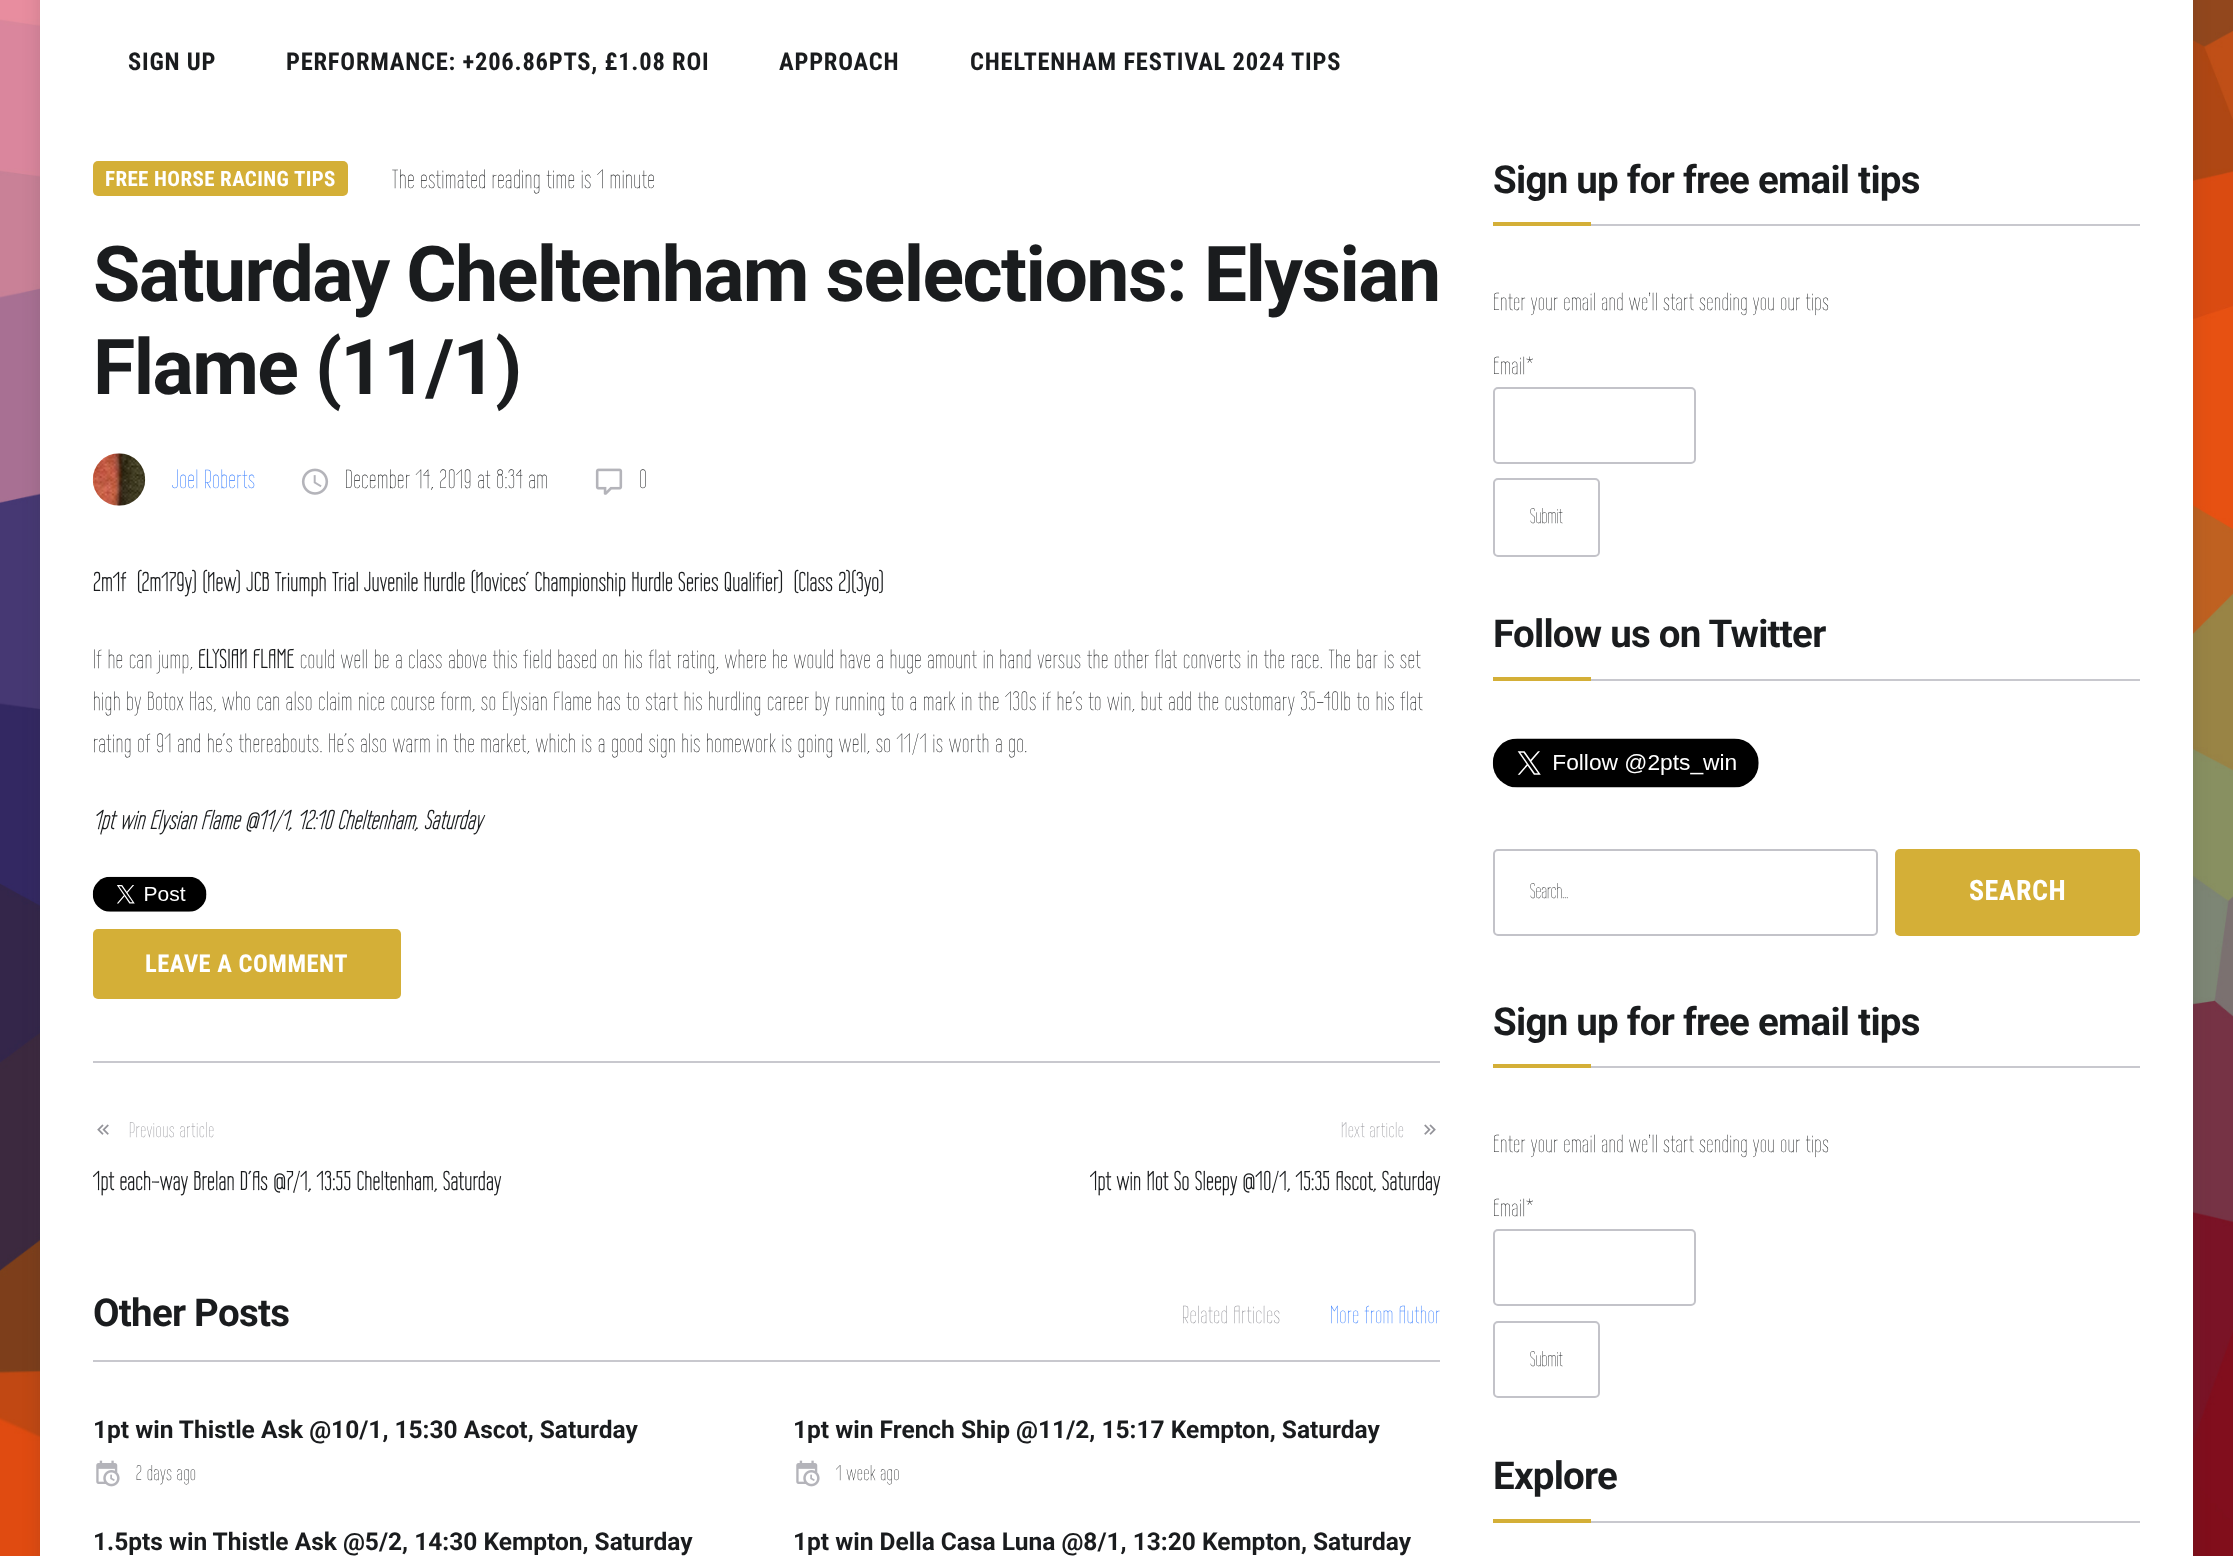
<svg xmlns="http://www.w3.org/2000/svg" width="2233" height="1556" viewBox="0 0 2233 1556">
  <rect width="100%" height="100%" fill="rgb(255,255,255)"/>
  <image x="0" y="0" width="2233" height="1556" href="pic1.png"/>
  <rect x="40" y="-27" width="2153" height="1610" fill="rgba(38,38,38,0.15)" filter="blur(9px)"/>
  <rect x="40" y="0" width="2153" height="1556" fill="rgb(255,255,255)"/>
  <g font-family="Roboto Condensed" font-size="24.5" font-weight="bold" letter-spacing="0.79" fill="rgb(26,28,30)">
    <text x="128" y="70">SIGN UP</text>
    <text x="286" y="70">PERFORMANCE: +206.86PTS, £1.08 ROI</text>
    <text x="779" y="70">APPROACH</text>
    <text x="970" y="70">CHELTENHAM FESTIVAL 2024 TIPS</text>
  </g>
  <rect x="93" y="161" width="255" height="35" rx="5" fill="rgb(212,175,55)"/>
  <text x="105" y="186" font-family="Roboto Condensed" font-size="21" font-weight="bold" letter-spacing="0.4" fill="rgb(255,255,255)">FREE HORSE RACING TIPS</text>
  <text x="392" y="188" font-family="Wire One" font-size="26.25" letter-spacing="0.79" fill="rgb(26,28,30)">The estimated reading time is 1 minute</text>
  <g font-family="Roboto" font-size="77" font-weight="bold" letter-spacing="-1.55" fill="rgb(26,28,30)">
    <text>
      <tspan x="93" y="301">Saturday Cheltenham selections: Elysian</tspan>
      <tspan x="93" y="394">Flame (11/1)</tspan>
    </text>
  </g>
  <image x="92" y="453" width="54" height="53" href="pic2.png"/>
  <text x="172" y="488" font-family="Wire One" font-size="26.25" letter-spacing="0.79" fill="rgb(55,126,255)">Joel Roberts</text>
  <image x="301" y="468" width="28" height="27" href="pic3.png"/>
  <text x="345" y="488" font-family="Wire One" font-size="26.25" letter-spacing="0.79" fill="rgb(26,28,30)">December 14, 2019 at 8:34 am</text>
  <image x="595" y="468" width="28" height="27" href="pic4.png"/>
  <text x="639" y="488" font-family="Wire One" font-size="26.25" letter-spacing="0.79" fill="rgb(26,28,30)">0</text>
  <text x="93" y="591" font-family="Wire One" font-size="26.25" font-weight="bold" letter-spacing="0.79" fill="rgb(26,28,30)" xml:space="preserve">2m1f  (2m179y) (New) JCB Triumph Trial Juvenile Hurdle (Novices’ Championship Hurdle Series Qualifier)  (Class 2)(3yo)</text>
  <text x="93" y="668" font-family="Wire One" font-size="26.25" letter-spacing="0.79" fill="rgb(26,28,30)">If he can jump,</text>
  <text x="198" y="668" font-family="Wire One" font-size="26.25" font-weight="bold" letter-spacing="0.79" fill="rgb(26,28,30)">ELYSIAN FLAME</text>
  <g font-family="Wire One" font-size="26.25" letter-spacing="0.79" fill="rgb(26,28,30)">
    <text x="300" y="668">could well be a class above this field based on his flat rating, where he would have a huge amount in hand versus the other flat converts in the race. The bar is set</text>
    <text>
      <tspan x="93" y="710">high by Botox Has, who can also claim nice course form, so Elysian Flame has to start his hurdling career by running to a mark in the 130s if he’s to win, but add the customary 35-40lb to his flat</tspan>
      <tspan x="93" y="752">rating of 91 and he’s thereabouts. He’s also warm in the market, which is a good sign his homework is going well, so 11/1 is worth a go.</tspan>
    </text>
  </g>
  <text x="93" y="829" font-family="Wire One" font-size="26.25" font-weight="bold" font-style="italic" letter-spacing="0.79" fill="rgb(26,28,30)">1pt win Elysian Flame @11/1, 12:10 Cheltenham, Saturday</text>
  <image x="92" y="876" width="115" height="36" href="pic5.png"/>
  <rect x="93" y="929" width="308" height="70" rx="5" fill="rgb(212,175,55)"/>
  <text x="145" y="972" font-family="Roboto Condensed" font-size="24.5" font-weight="bold" letter-spacing="0.5" fill="rgb(255,255,255)">LEAVE A COMMENT</text>
  <rect x="93" y="1061" width="1347" height="2" fill="rgb(200,200,206)"/>
  <image x="97" y="1124" width="12" height="11" href="pic6.png"/>
  <text x="129" y="1137" font-family="Wire One" font-size="21" letter-spacing="0.79" fill="rgb(147,147,153)">Previous article</text>
  <text x="93" y="1190" font-family="Wire One" font-size="26.25" font-weight="bold" letter-spacing="0.79" fill="rgb(26,28,30)">1pt each-way Brelan D’As @7/1, 13:55 Cheltenham, Saturday</text>
  <text x="1341" y="1137" font-family="Wire One" font-size="21" letter-spacing="0.79" fill="rgb(147,147,153)">Next article</text>
  <image x="1424" y="1124" width="12" height="11" href="pic7.png"/>
  <text x="1090" y="1190" font-family="Wire One" font-size="26.25" font-weight="bold" letter-spacing="0.79" fill="rgb(26,28,30)">1pt win Not So Sleepy @10/1, 15:35 Ascot, Saturday</text>
  <rect x="93" y="1360" width="1347" height="2" fill="rgb(200,200,206)"/>
  <text x="93" y="1326" font-family="Roboto" font-size="38.5" font-weight="bold" letter-spacing="-0.75" fill="rgb(26,28,30)">Other Posts</text>
  <text x="1182" y="1323" font-family="Wire One" font-size="24.5" letter-spacing="0.79" fill="rgb(147,147,153)">Related Articles</text>
  <text x="1330" y="1323" font-family="Wire One" font-size="24.5" letter-spacing="0.79" fill="rgb(55,126,255)">More from Author</text>
  <text x="93" y="1438" font-family="Roboto" font-size="24.5" font-weight="bold" fill="rgb(26,28,30)">1pt win Thistle Ask @10/1, 15:30 Ascot, Saturday</text>
  <image x="96" y="1460" width="24" height="27" href="pic8.png"/>
  <text x="136" y="1480" font-family="Wire One" font-size="21" letter-spacing="0.79" fill="rgb(26,28,30)">2 days ago</text>
  <text x="793" y="1438" font-family="Roboto" font-size="24.5" font-weight="bold" fill="rgb(26,28,30)">1pt win French Ship @11/2, 15:17 Kempton, Saturday</text>
  <image x="796" y="1460" width="24" height="27" href="pic8.png"/>
  <text x="836" y="1480" font-family="Wire One" font-size="21" letter-spacing="0.79" fill="rgb(26,28,30)">1 week ago</text>
  <g font-family="Roboto" font-size="24.5" font-weight="bold" fill="rgb(26,28,30)">
    <text x="93" y="1550">1.5pts win Thistle Ask @5/2, 14:30 Kempton, Saturday</text>
    <text x="793" y="1550">1pt win Della Casa Luna @8/1, 13:20 Kempton, Saturday</text>
  </g>
  <rect x="1591" y="224" width="549" height="2" fill="rgb(200,200,206)"/>
  <text x="1493" y="193" font-family="Roboto" font-size="38.5" font-weight="bold" letter-spacing="-0.75" fill="rgb(26,28,30)">Sign up for free email tips</text>
  <rect x="1493" y="222" width="98" height="4" fill="rgb(212,175,55)"/>
  <g font-family="Wire One" font-size="24.5" letter-spacing="0.79" fill="rgb(26,28,30)">
    <text x="1493" y="310">Enter your email and we'll start sending you our tips</text>
    <text x="1493" y="374">Email*</text>
  </g>
  <rect x="1494" y="388" width="201" height="75" rx="4" fill="none" stroke="rgb(195,195,201)" stroke-width="2"/>
  <rect x="1494" y="479" width="105" height="77" rx="4" fill="none" stroke="rgb(195,195,201)" stroke-width="2"/>
  <text x="1530" y="523" font-family="Wire One" font-size="21" fill="rgb(26,28,30)">Submit</text>
  <rect x="1591" y="679" width="549" height="2" fill="rgb(200,200,206)"/>
  <text x="1493" y="647" font-family="Roboto" font-size="38.5" font-weight="bold" letter-spacing="-0.75" fill="rgb(26,28,30)">Follow us on Twitter</text>
  <rect x="1493" y="677" width="98" height="4" fill="rgb(212,175,55)"/>
  <image x="1492" y="738" width="267" height="50" href="pic9.png"/>
  <rect x="1494" y="850" width="383" height="85" rx="4" fill="none" stroke="rgb(195,195,201)" stroke-width="2"/>
  <text x="1530" y="898" font-family="Wire One" font-size="21" fill="rgb(26,28,30)">Search...</text>
  <rect x="1895" y="849" width="245" height="87" rx="5" fill="rgb(212,175,55)"/>
  <text x="1969" y="900" font-family="Roboto Condensed" font-size="28" font-weight="bold" letter-spacing="0.5" fill="rgb(255,255,255)">SEARCH</text>
  <rect x="1591" y="1066" width="549" height="2" fill="rgb(200,200,206)"/>
  <text x="1493" y="1035" font-family="Roboto" font-size="38.5" font-weight="bold" letter-spacing="-0.75" fill="rgb(26,28,30)">Sign up for free email tips</text>
  <rect x="1493" y="1064" width="98" height="4" fill="rgb(212,175,55)"/>
  <g font-family="Wire One" font-size="24.5" letter-spacing="0.79" fill="rgb(26,28,30)">
    <text x="1493" y="1152">Enter your email and we'll start sending you our tips</text>
    <text x="1493" y="1216">Email*</text>
  </g>
  <rect x="1494" y="1230" width="201" height="75" rx="4" fill="none" stroke="rgb(195,195,201)" stroke-width="2"/>
  <rect x="1494" y="1322" width="105" height="75" rx="4" fill="none" stroke="rgb(195,195,201)" stroke-width="2"/>
  <text x="1530" y="1366" font-family="Wire One" font-size="21" fill="rgb(26,28,30)">Submit</text>
  <rect x="1591" y="1521" width="549" height="2" fill="rgb(200,200,206)"/>
  <text x="1493" y="1489" font-family="Roboto" font-size="38.5" font-weight="bold" letter-spacing="-0.75" fill="rgb(26,28,30)">Explore</text>
  <rect x="1493" y="1519" width="98" height="4" fill="rgb(212,175,55)"/>
</svg>
